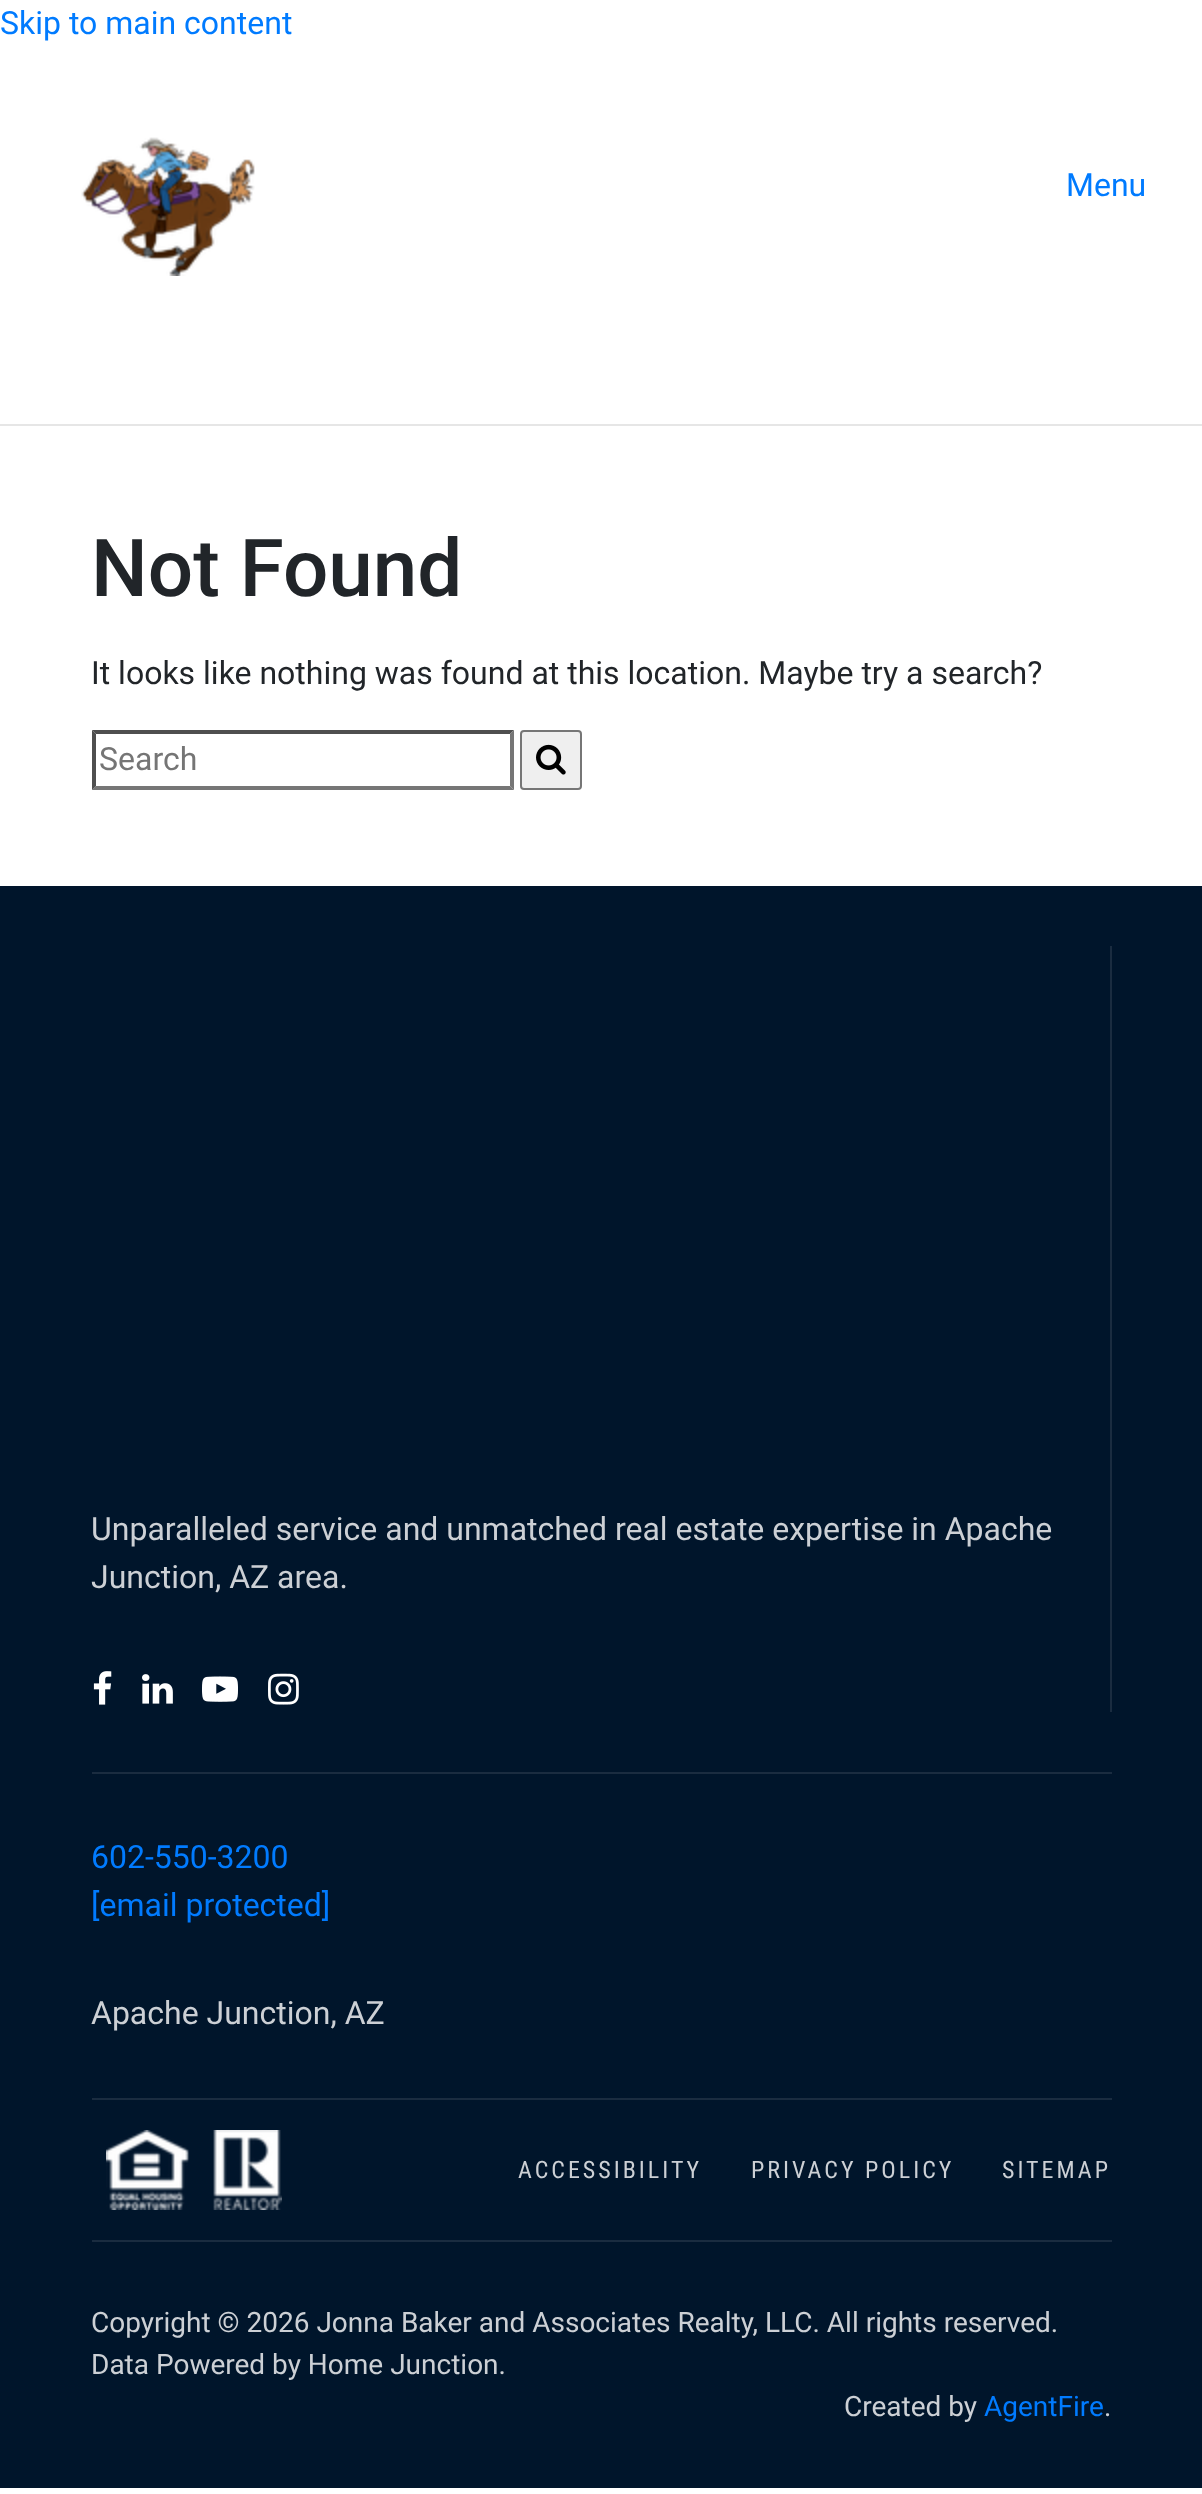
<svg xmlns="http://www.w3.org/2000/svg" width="1202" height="2494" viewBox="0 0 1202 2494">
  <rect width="100%" height="100%" fill="rgb(255,255,255)"/>
  <text x="0" y="34" font-family="Roboto" font-size="32" fill="rgb(0,123,255)">Skip to main content</text>
  <rect x="0" y="424" width="1202" height="2" fill="rgb(230,230,230)"/>
  <image x="81" y="137" width="174" height="139" href="pic1.png"/>
  <text x="1066" y="196" font-family="Roboto" font-size="32" fill="rgb(0,123,255)">Menu</text>
  <text x="91" y="596" font-family="Roboto" font-size="80" font-weight="500" fill="rgb(33,37,41)">Not Found</text>
  <text x="91" y="684" font-family="Roboto" font-size="32" fill="rgb(33,37,41)">It looks like nothing was found at this location. Maybe try a search?</text>
  <path d="M92 730H514L510 734H96Z" fill="rgb(79,79,79)"/>
  <path d="M514 730V790L510 786V734Z" fill="rgb(118,118,118)"/>
  <path d="M514 790H92L96 786H510Z" fill="rgb(118,118,118)"/>
  <path d="M92 790V730L96 734V786Z" fill="rgb(79,79,79)"/>
  <text x="99" y="770" font-family="Roboto" font-size="32" fill="rgb(117,117,117)">Search</text>
  <rect x="521" y="731" width="60" height="58" rx="3" fill="rgb(239,239,239)" stroke="rgb(118,118,118)" stroke-width="2"/>
  <image x="536" y="744" width="30" height="31" href="pic2.png"/>
  <rect x="0" y="886" width="1202" height="1602" fill="rgb(0,21,43)"/>
  <rect x="92" y="1772" width="1020" height="2" fill="rgb(26,44,64)"/>
  <rect x="1110" y="946" width="2" height="766" fill="rgb(26,44,64)"/>
  <g font-family="Roboto" font-size="32" fill="rgb(204,208,213)">
    <text>
      <tspan x="91" y="1540">Unparalleled service and unmatched real estate expertise in Apache</tspan>
      <tspan x="91" y="1588">Junction, AZ area.</tspan>
    </text>
  </g>
  <image x="93" y="1671" width="19" height="34" href="pic3.png"/>
  <image x="142" y="1674" width="31" height="30" href="pic4.png"/>
  <image x="202" y="1676" width="36" height="26" href="pic5.png"/>
  <image x="268" y="1673" width="31" height="32" href="pic6.png"/>
  <g font-family="Roboto" font-size="32" fill="rgb(0,123,255)">
    <text>
      <tspan x="91" y="1868">602-550-3200</tspan>
      <tspan x="91" y="1916">[email protected]</tspan>
    </text>
  </g>
  <text x="91" y="2024" font-family="Roboto" font-size="32" fill="rgb(204,208,213)">Apache Junction, AZ</text>
  <rect x="92" y="2098" width="1020" height="2" fill="rgb(26,44,64)"/>
  <rect x="92" y="2240" width="1020" height="2" fill="rgb(26,44,64)"/>
  <image x="106" y="2130" width="176" height="80" href="pic7.png"/>
  <g font-family="Roboto Condensed" font-size="24" letter-spacing="3" fill="rgb(204,208,213)">
    <text x="518" y="2178">ACCESSIBILITY</text>
    <text x="751" y="2178">PRIVACY POLICY</text>
    <text x="1002" y="2178">SITEMAP</text>
  </g>
  <g font-family="Roboto" font-size="28" fill="rgb(204,208,213)">
    <text>
      <tspan x="91" y="2332">Copyright © 2026 Jonna Baker and Associates Realty, LLC. All rights reserved.</tspan>
      <tspan x="91" y="2374">Data Powered by Home Junction.</tspan>
    </text>
    <text x="844" y="2416">Created by</text>
  </g>
  <text x="984" y="2416" font-family="Roboto" font-size="28" fill="rgb(0,123,255)">AgentFire</text>
  <text x="1104" y="2416" font-family="Roboto" font-size="28" fill="rgb(204,208,213)">.</text>
</svg>
